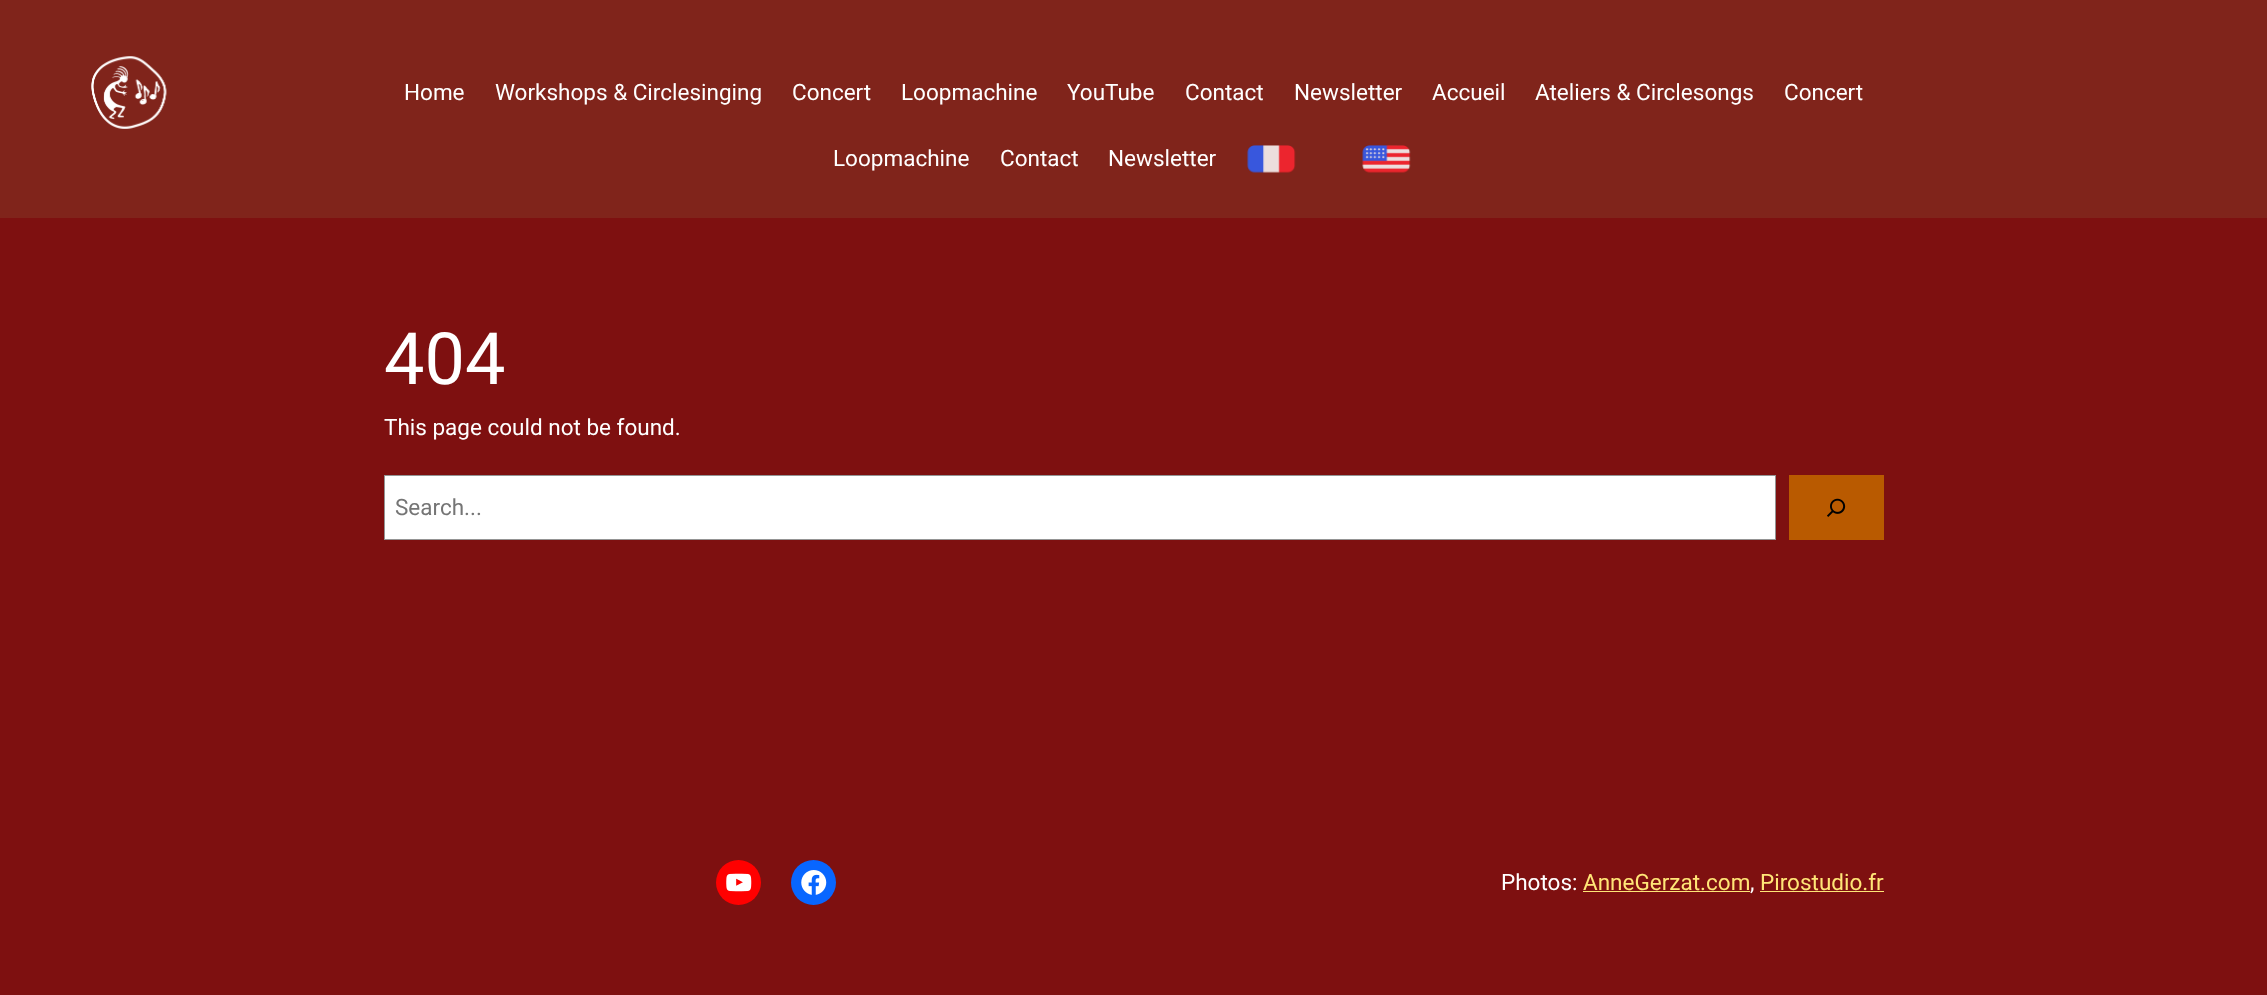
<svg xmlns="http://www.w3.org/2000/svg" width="2267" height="995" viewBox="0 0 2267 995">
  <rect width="100%" height="100%" fill="rgb(126,16,16)"/>
  <rect x="0" y="0" width="2267" height="218" fill="rgb(128,36,27)"/>
  <image x="91" y="56" width="76" height="73" href="pic1.png"/>
  <g font-family="Roboto" font-size="22.5" fill="rgb(255,255,255)">
    <text x="404" y="100">Home</text>
    <text x="495" y="100">Workshops &amp; Circlesinging</text>
    <text x="792" y="100">Concert</text>
    <text x="901" y="100">Loopmachine</text>
    <text x="1067" y="100">YouTube</text>
    <text x="1185" y="100">Contact</text>
    <text x="1294" y="100">Newsletter</text>
    <text x="1432" y="100">Accueil</text>
    <text x="1535" y="100">Ateliers &amp; Circlesongs</text>
    <text x="1784" y="100">Concert</text>
    <text x="833" y="166">Loopmachine</text>
    <text x="1000" y="166">Contact</text>
    <text x="1108" y="166">Newsletter</text>
  </g>
  <image x="1247" y="145" width="49" height="28" href="pic2.png"/>
  <image x="1362" y="145" width="49" height="28" href="pic3.png"/>
  <text x="384" y="384" font-family="Roboto" font-size="72" fill="rgb(255,255,255)">404</text>
  <text x="384" y="435" font-family="Roboto" font-size="22.5" fill="rgb(255,255,255)">This page could not be found.</text>
  <rect x="384.5" y="475.5" width="1391" height="64" fill="rgb(255,255,255)" stroke="rgb(148,148,148)"/>
  <text x="395" y="515" font-family="Roboto" font-size="22.5" fill="rgb(117,117,117)">Search...</text>
  <rect x="1789" y="475" width="95" height="65" fill="rgb(185,90,0)"/>
  <image x="1827" y="498" width="19" height="19" href="pic4.png"/>
  <circle cx="738.5" cy="882.5" r="22.5" fill="rgb(255,0,0)"/>
  <image x="726" y="873" width="26" height="19" href="pic5.png"/>
  <circle cx="813.5" cy="882.5" r="22.5" fill="rgb(8,102,255)"/>
  <image x="801" y="870" width="26" height="25" href="pic6.png"/>
  <text x="1501" y="890" font-family="Roboto" font-size="22.5" fill="rgb(255,255,255)">Photos:</text>
  <text x="1583" y="890" font-family="Roboto" font-size="22.5" fill="rgb(255,230,119)">AnneGerzat.com</text>
  <rect x="1583" y="891" width="167" height="1" fill="rgb(255,230,119)"/>
  <text x="1750" y="890" font-family="Roboto" font-size="22.5" fill="rgb(255,255,255)">,</text>
  <text x="1760" y="890" font-family="Roboto" font-size="22.5" fill="rgb(255,230,119)">Pirostudio.fr</text>
  <rect x="1760" y="891" width="124" height="1" fill="rgb(255,230,119)"/>
</svg>
